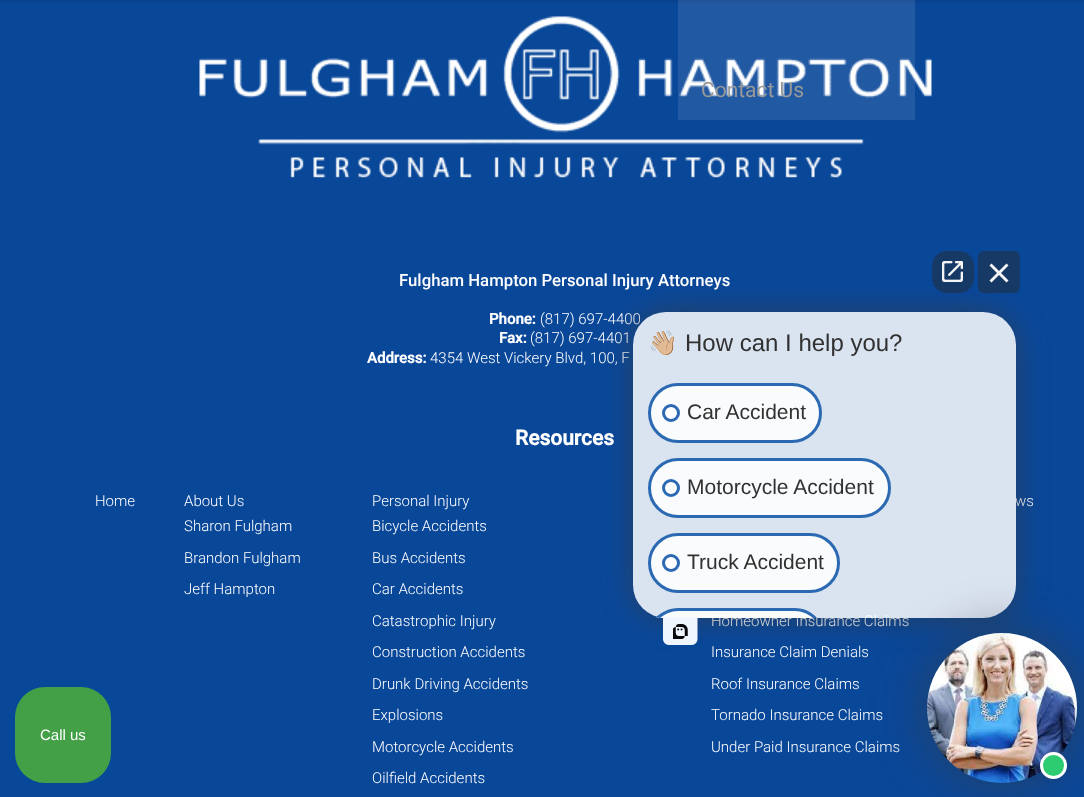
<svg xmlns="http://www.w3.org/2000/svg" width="1084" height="797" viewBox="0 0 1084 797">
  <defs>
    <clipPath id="clip1"><path d="M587 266H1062V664H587ZM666 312H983C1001 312 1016 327 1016 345V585C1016 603 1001 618 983 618H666C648 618 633 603 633 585V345C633 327 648 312 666 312Z" clip-rule="evenodd"/></clipPath>
    <clipPath id="clip2"><rect x="633" y="312" width="383" height="306" rx="30"/></clipPath>
  </defs>
  <rect width="100%" height="100%" fill="rgb(9,71,153)"/>
  <rect x="0" y="-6" width="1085" height="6" fill="rgba(0,0,0,0.22)" filter="blur(2px)"/>
  <image x="199" y="16" width="733" height="162" href="pic1.png"/>
  <rect x="678" y="0" width="237" height="120" fill="rgba(255,255,255,0.1)"/>
  <text x="701" y="97" font-family="Roboto" font-size="21" fill="rgb(153,153,153)">Contact Us</text>
  <text x="399" y="286" font-family="Roboto" font-size="16.75" font-weight="500" fill="rgb(255,255,255)">Fulgham Hampton Personal Injury Attorneys</text>
  <text x="489" y="324" font-family="Roboto" font-size="15" font-weight="bold" fill="rgb(255,255,255)">Phone:</text>
  <text x="540" y="324" font-family="Roboto" font-size="15" font-weight="300" fill="rgb(255,255,255)">(817) 697-4400</text>
  <text x="499" y="343" font-family="Roboto" font-size="15" font-weight="bold" fill="rgb(255,255,255)">Fax:</text>
  <text x="530" y="343" font-family="Roboto" font-size="15" font-weight="300" fill="rgb(255,255,255)">(817) 697-4401</text>
  <text x="367" y="363" font-family="Roboto" font-size="15" font-weight="bold" fill="rgb(255,255,255)">Address:</text>
  <text x="430" y="363" font-family="Roboto" font-size="15" font-weight="300" fill="rgb(255,255,255)">4354 West Vickery Blvd, 100, F</text>
  <text x="515" y="445" font-family="Roboto" font-size="21" font-weight="bold" fill="rgb(255,255,255)">Resources</text>
  <g font-family="Roboto" font-size="15" font-weight="300" fill="rgb(255,255,255)">
    <text x="95" y="506">Home</text>
    <text>
      <tspan x="184" y="506">About Us</tspan>
      <tspan x="184" y="531">Sharon Fulgham</tspan>
    </text>
    <text x="184" y="563">Brandon Fulgham</text>
    <text x="184" y="594">Jeff Hampton</text>
    <text>
      <tspan x="372" y="506">Personal Injury</tspan>
      <tspan x="372" y="531">Bicycle Accidents</tspan>
    </text>
    <text x="372" y="563">Bus Accidents</text>
    <text x="372" y="594">Car Accidents</text>
    <text x="372" y="626">Catastrophic Injury</text>
    <text x="372" y="657">Construction Accidents</text>
    <text x="372" y="689">Drunk Driving Accidents</text>
    <text x="372" y="720">Explosions</text>
    <text x="372" y="752">Motorcycle Accidents</text>
    <text x="372" y="783">Oilfield Accidents</text>
    <text x="1015" y="506">ws</text>
    <text x="711" y="626">Homeowner Insurance Claims</text>
    <text x="711" y="657">Insurance Claim Denials</text>
    <text x="711" y="689">Roof Insurance Claims</text>
    <text x="711" y="720">Tornado Insurance Claims</text>
    <text x="711" y="752">Under Paid Insurance Claims</text>
  </g>
  <g clip-path="url(#clip1)">
    <rect x="633" y="312" width="383" height="306" rx="33" fill="rgba(60,60,60,0.6)" filter="blur(15px)"/>
  </g>
  <rect x="633" y="312" width="383" height="306" rx="33" fill="rgba(255,255,255,0.85)"/>
  <rect x="932" y="251" width="42" height="42" rx="15" fill="rgba(39,39,39,0.45)"/>
  <image x="942" y="261" width="21" height="21" href="pic2.png"/>
  <rect x="978" y="251" width="42" height="42" rx="6" fill="rgba(39,39,39,0.45)"/>
  <path d="M989.5 265.5L991.5 263.5L1008.5 280.5L1006.5 282.5Z" fill="rgb(245,245,245)"/>
  <path d="M1006.5 263.5L1008.5 265.5L991.5 282.5L989.5 280.5Z" fill="rgb(245,245,245)"/>
  <text x="648" y="351" font-family="Noto Color Emoji" font-size="24" fill="rgb(49,49,49)">👋🏼</text>
  <text x="685" y="351" font-family="Liberation Sans" font-size="24" fill="rgb(49,49,49)">How can I help you?</text>
  <rect x="649.5" y="384.5" width="171" height="57" rx="28.5" fill="rgb(249,251,253)" stroke="rgb(43,105,178)" stroke-width="3"/>
  <circle cx="671" cy="413" r="7.5" fill="rgb(255,255,255)" stroke="rgb(43,105,178)" stroke-width="3"/>
  <text x="687" y="419" font-family="Liberation Sans" font-size="21" fill="rgb(49,49,49)">Car Accident</text>
  <rect x="649.5" y="459.5" width="240" height="57" rx="28.5" fill="rgba(255,255,255,0.85)" stroke="rgb(43,105,178)" stroke-width="3"/>
  <circle cx="671" cy="488" r="7.5" fill="rgb(255,255,255)" stroke="rgb(43,105,178)" stroke-width="3"/>
  <text x="687" y="494" font-family="Liberation Sans" font-size="21" fill="rgb(49,49,49)">Motorcycle Accident</text>
  <rect x="649.5" y="534.5" width="189" height="57" rx="28.5" fill="rgba(255,255,255,0.85)" stroke="rgb(43,105,178)" stroke-width="3"/>
  <circle cx="671" cy="563" r="7.5" fill="rgb(255,255,255)" stroke="rgb(43,105,178)" stroke-width="3"/>
  <text x="687" y="569" font-family="Liberation Sans" font-size="21" fill="rgb(49,49,49)">Truck Accident</text>
  <g clip-path="url(#clip2)">
    <path d="M678 608H795C811.5 608 825 621.5 825 638V618H648V638C648 621.5 661.5 608 678 608Z" fill="rgba(255,255,255,0.85)"/>
  </g>
  <path d="M678 608C669 608 662 612 656 617L660 618C665 614 671 611 678 611H795C802 611 808 614 813 618H817C812 612 804 608 795 608Z" fill="rgb(43,105,178)"/>
  <image x="663" y="618" width="35" height="27" href="pic3.png"/>
  <rect x="927" y="633" width="150" height="150" rx="75" fill="rgba(60,60,60,0.6)" filter="blur(26px)"/>
  <image x="927" y="633" width="150" height="150" href="pic4.png"/>
  <circle cx="1053.5" cy="765.5" r="12" fill="rgb(46,204,113)" stroke="rgb(255,255,255)" stroke-width="3"/>
  <rect x="15" y="687" width="96" height="96" rx="30" fill="rgb(67,160,71)"/>
  <text x="40" y="740" font-family="Liberation Sans" font-size="15" fill="rgb(255,255,255)">Call us</text>
</svg>
